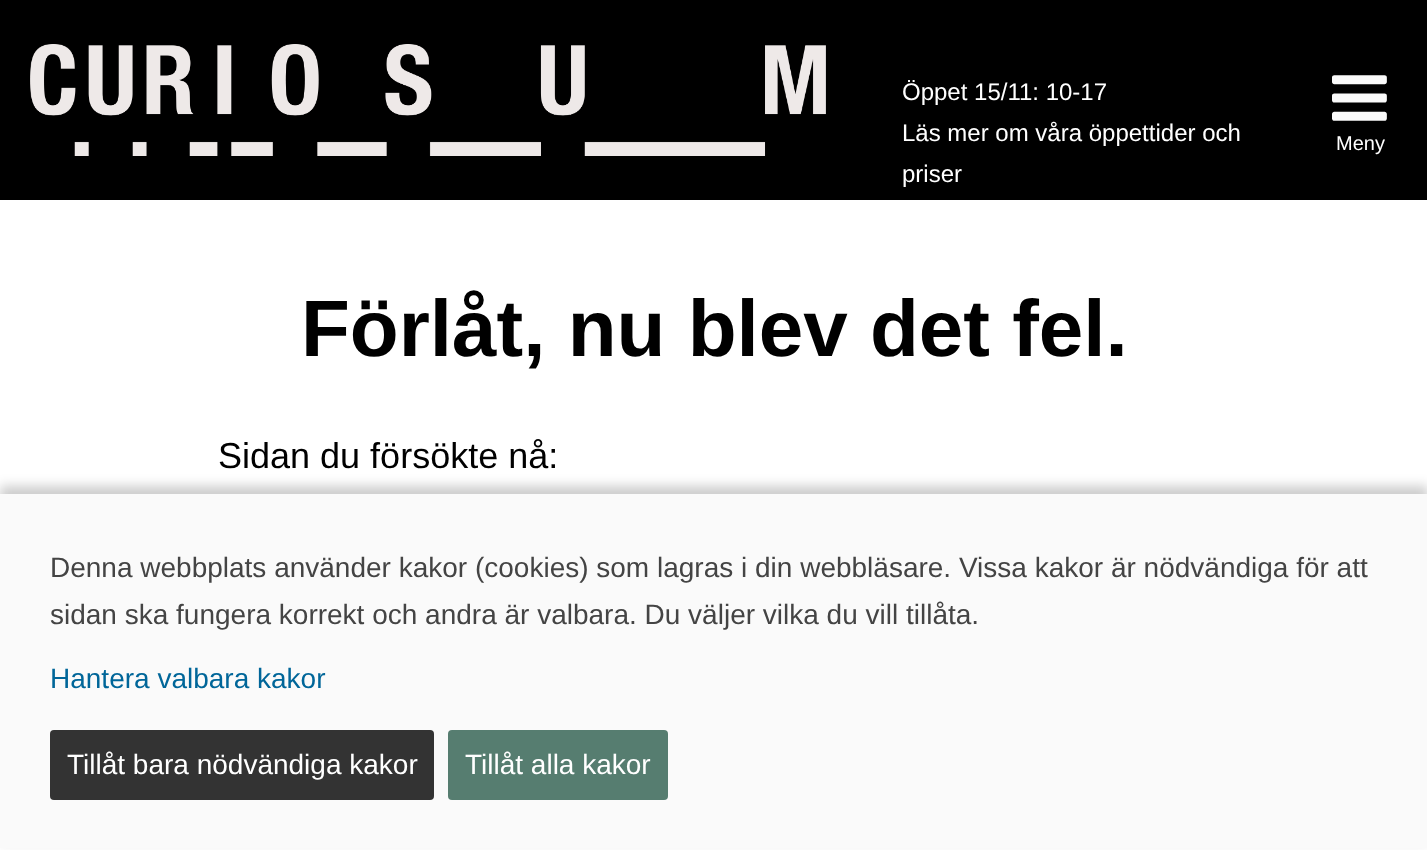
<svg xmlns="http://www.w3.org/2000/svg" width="1427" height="850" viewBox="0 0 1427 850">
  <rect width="100%" height="100%" fill="rgb(255,255,255)"/>
  <rect x="0" y="0" width="1427" height="200" fill="rgb(0,0,0)"/>
  <image x="30" y="44" width="796" height="112" href="pic1.png"/>
  <g font-family="Liberation Sans" font-size="24" fill="rgb(255,255,255)">
    <text>
      <tspan x="902" y="100">Öppet 15/11: 10-17</tspan>
      <tspan x="902" y="141">Läs mer om våra öppettider och</tspan>
      <tspan x="902" y="182">priser</tspan>
    </text>
  </g>
  <image x="1332" y="75" width="55" height="46" href="pic2.png"/>
  <text x="1336" y="150" font-family="Liberation Sans" font-size="20" fill="rgb(255,255,255)">Meny</text>
  <text x="301" y="356" font-family="Liberation Sans" font-size="80" font-weight="bold" fill="rgb(0,0,0)">Förlåt, nu blev det fel.</text>
  <text x="218" y="468" font-family="Liberation Sans" font-size="36" fill="rgb(0,0,0)">Sidan du försökte nå:</text>
  <rect x="0" y="486" width="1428" height="356" fill="rgba(0,0,0,0.2)" filter="blur(6px)"/>
  <rect x="0" y="494" width="1427" height="354" fill="rgb(250,250,250)"/>
  <g font-family="Liberation Sans" font-size="28" fill="rgb(68,68,68)">
    <text>
      <tspan x="50" y="577">Denna webbplats använder kakor (cookies) som lagras i din webbläsare. Vissa kakor är nödvändiga för att</tspan>
      <tspan x="50" y="624">sidan ska fungera korrekt och andra är valbara. Du väljer vilka du vill tillåta.</tspan>
    </text>
  </g>
  <text x="50" y="688" font-family="Liberation Sans" font-size="28" fill="rgb(0,102,153)">Hantera valbara kakor</text>
  <rect x="50" y="730" width="384" height="70" rx="4" fill="rgb(51,51,51)"/>
  <text x="67" y="774" font-family="Liberation Sans" font-size="28" fill="rgb(255,255,255)">Tillåt bara nödvändiga kakor</text>
  <rect x="448" y="730" width="220" height="70" rx="4" fill="rgb(86,125,112)"/>
  <text x="465" y="774" font-family="Liberation Sans" font-size="28" fill="rgb(255,255,255)">Tillåt alla kakor</text>
</svg>
